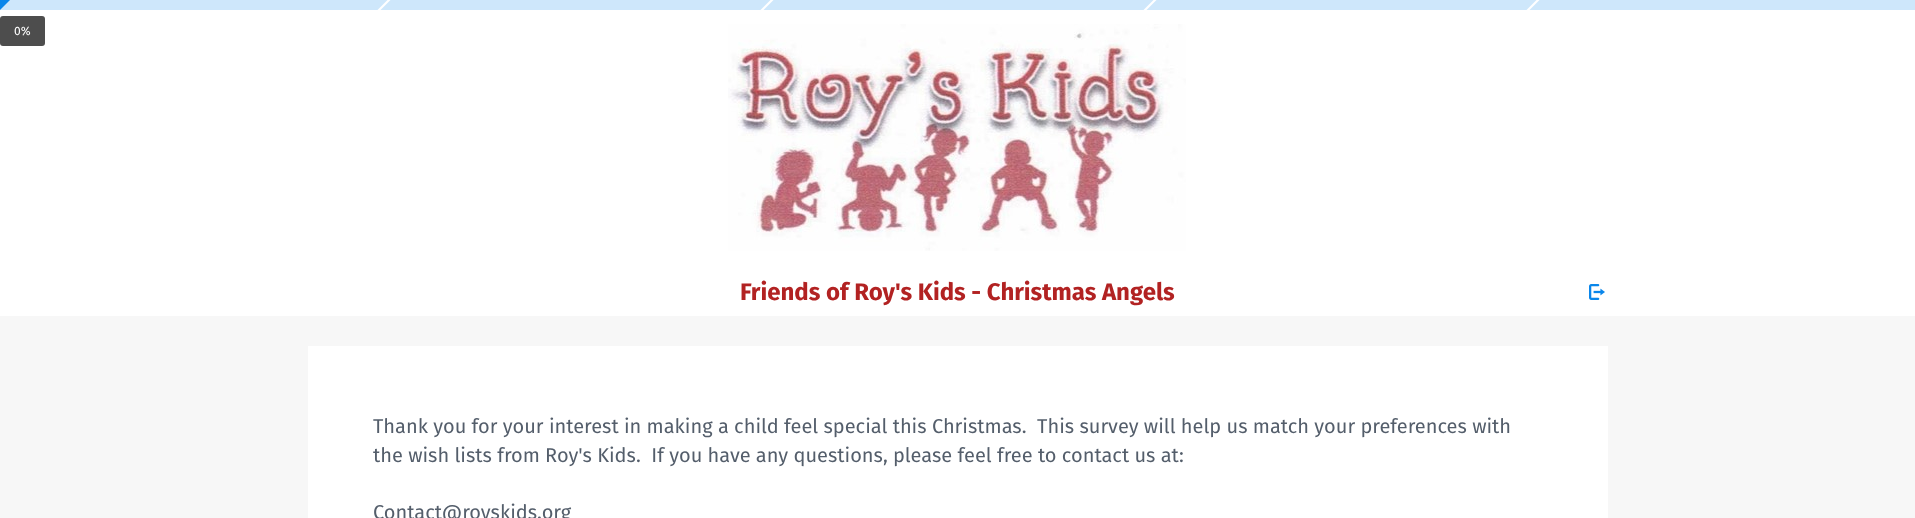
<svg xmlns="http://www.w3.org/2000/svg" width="1915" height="518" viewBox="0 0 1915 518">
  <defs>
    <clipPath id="clip1"><rect x="0" y="0" width="1915" height="10"/></clipPath>
  </defs>
  <rect width="100%" height="100%" fill="rgb(247,247,247)"/>
  <rect x="0" y="10" width="1915" height="306" fill="rgb(255,255,255)"/>
  <rect x="0" y="16" width="45" height="30" rx="3" fill="rgb(77,77,77)"/>
  <text x="14" y="35" font-family="Fira Sans" font-size="12" fill="rgb(255,255,255)">0%</text>
  <rect x="0" y="0" width="1915" height="10" fill="rgb(206,231,251)"/>
  <path d="M0 0H10L0 10Z" fill="rgb(10,134,234)"/>
  <g clip-path="url(#clip1)">
    <path d="M390.5-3L392-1.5L377.5 13L376 11.5Z" fill="rgb(255,255,255)"/>
    <path d="M773.5-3L775-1.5L760.5 13L759 11.5Z" fill="rgb(255,255,255)"/>
    <path d="M1156.5-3L1158-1.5L1143.5 13L1142 11.5Z" fill="rgb(255,255,255)"/>
    <path d="M1539.5-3L1541-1.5L1526.5 13L1525 11.5Z" fill="rgb(255,255,255)"/>
  </g>
  <image x="728" y="24" width="458" height="227" href="pic1.png"/>
  <text x="740" y="300" font-family="Fira Sans" font-size="24" font-weight="bold" fill="rgb(178,34,34)">Friends of Roy's Kids - Christmas Angels</text>
  <image x="1589" y="284" width="16" height="16" href="pic2.png"/>
  <rect x="308" y="346" width="1300" height="172" fill="rgb(255,255,255)"/>
  <g font-family="Fira Sans" font-size="20" fill="rgb(84,94,107)">
    <text xml:space="preserve"><tspan x="373" y="433">Thank you for your interest in making a child feel special this Christmas.  This survey will help us match your preferences with</tspan><tspan x="373" y="462">the wish lists from Roy's Kids.  If you have any questions, please feel free to contact us at:</tspan></text>
    <text x="373" y="519">Contact@royskids.org</text>
  </g>
</svg>
